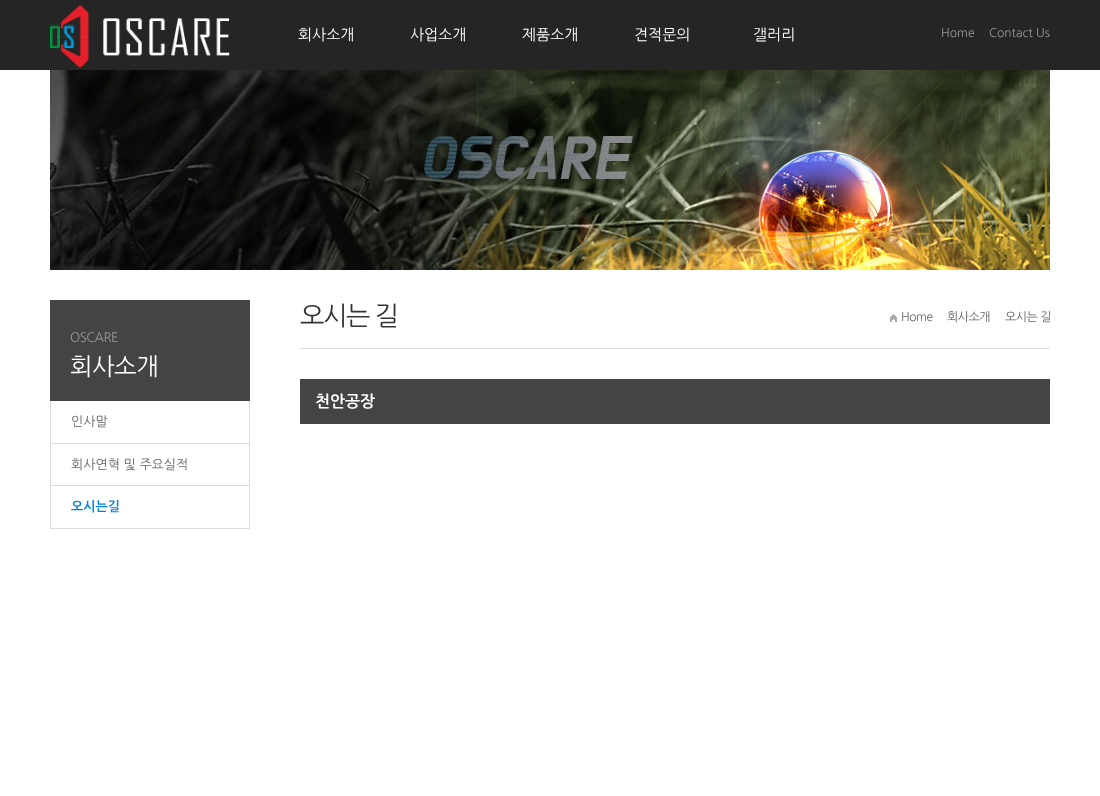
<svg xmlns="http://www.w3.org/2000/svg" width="1100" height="796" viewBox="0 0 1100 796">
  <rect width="100%" height="100%" fill="rgb(255,255,255)"/>
  <rect x="0" y="0" width="1100" height="70" fill="rgb(37,37,37)"/>
  <g font-family="NanumGothic" font-size="15" fill="rgb(255,255,255)">
    <text x="298" y="40">회사소개</text>
    <text x="410" y="40">사업소개</text>
    <text x="522" y="40">제품소개</text>
    <text x="634" y="40">견적문의</text>
    <text x="753" y="40">갤러리</text>
  </g>
  <image x="50" y="4" width="180" height="64" href="pic1.png"/>
  <g font-family="NanumGothic" font-size="12" fill="rgb(153,153,153)">
    <text x="941" y="37">Home</text>
    <text x="989" y="37">Contact Us</text>
  </g>
  <image x="50" y="70" width="1000" height="200" href="pic2.png"/>
  <rect x="50" y="300" width="200" height="101" fill="rgb(68,68,68)"/>
  <text x="70" y="342" font-family="NanumGothic" font-size="13" letter-spacing="-0.5" fill="rgb(153,153,153)">OSCARE</text>
  <text x="70" y="375" font-family="NanumGothic" font-size="24" letter-spacing="-0.5" fill="rgb(255,255,255)">회사소개</text>
  <rect x="249" y="401" width="1" height="128" fill="rgb(221,221,221)"/>
  <rect x="50" y="401" width="1" height="128" fill="rgb(221,221,221)"/>
  <rect x="51" y="443" width="198" height="1" fill="rgb(221,221,221)"/>
  <text x="71" y="426" font-family="NanumGothic" font-size="13" fill="rgb(102,102,102)">인사말</text>
  <rect x="51" y="485" width="198" height="1" fill="rgb(221,221,221)"/>
  <text x="71" y="469" font-family="NanumGothic" font-size="13" fill="rgb(102,102,102)">회사연혁 및 주요실적</text>
  <rect x="51" y="528" width="198" height="1" fill="rgb(221,221,221)"/>
  <text x="71" y="511" font-family="NanumGothic" font-size="13" font-weight="bold" fill="rgb(0,132,221)">오시는길</text>
  <rect x="300" y="348" width="750" height="1" fill="rgb(221,221,221)"/>
  <text x="300" y="325" font-family="NanumGothic" font-size="26" letter-spacing="-1.5" fill="rgb(51,51,51)">오시는 길</text>
  <image x="890" y="314" width="7" height="8" href="pic3.png"/>
  <g font-family="NanumGothic" font-size="12" letter-spacing="-0.5" fill="rgb(102,102,102)">
    <text x="901" y="321">Home</text>
    <text x="947" y="321">회사소개</text>
    <text x="1005" y="321">오시는 길</text>
  </g>
  <rect x="300" y="379" width="750" height="45" fill="rgb(68,68,68)"/>
  <text x="315" y="407" font-family="NanumGothic" font-size="16" font-weight="bold" fill="rgb(255,255,255)">천안공장</text>
</svg>
